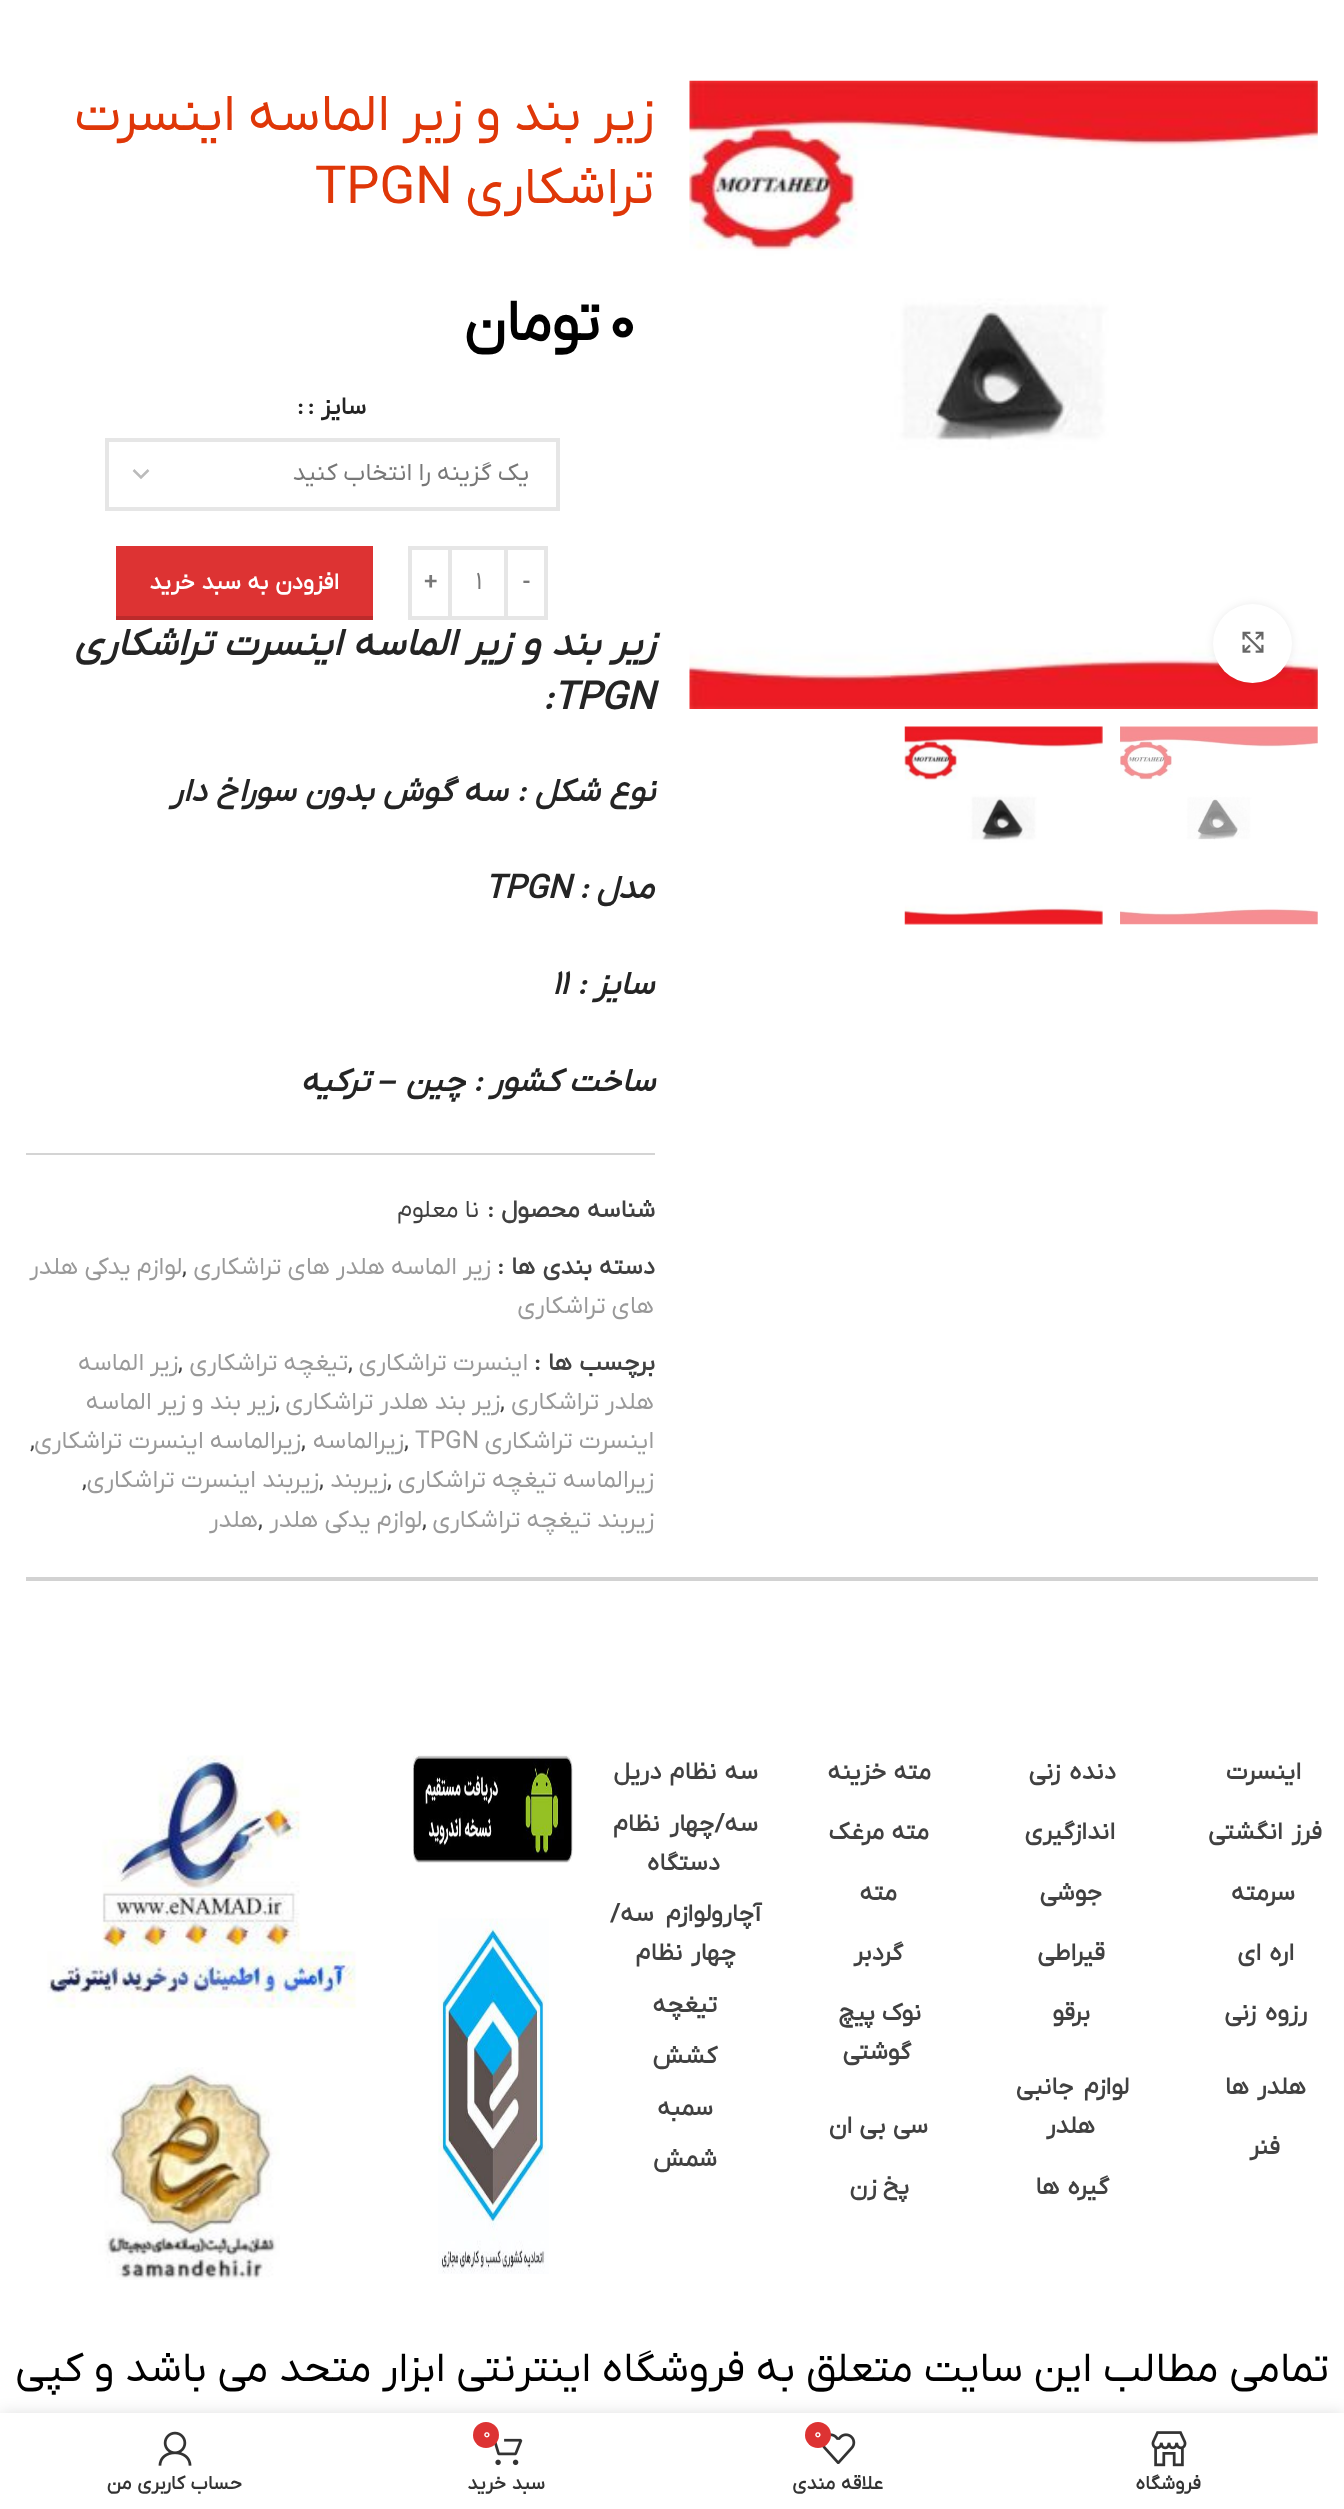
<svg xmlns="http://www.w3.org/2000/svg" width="1344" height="2509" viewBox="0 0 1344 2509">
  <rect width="100%" height="100%" fill="rgb(255,255,255)"/>
  <image x="689" y="80" width="629" height="629" href="pic1.png"/>
  <rect x="1213" y="604" width="79" height="79" rx="39.5" fill="rgba(0,0,0,0.08)" filter="blur(4.5px)"/>
  <circle cx="1252.5" cy="643.5" r="39.5" fill="rgb(255,255,255)"/>
  <image x="1242" y="631" width="22" height="22" href="pic2.png"/>
  <image x="1120" y="726" width="198" height="199" href="pic3.png"/>
  <image x="904" y="726" width="199" height="199" href="pic4.png"/>
  <g font-family="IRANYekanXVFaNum" font-size="52.5" direction="rtl" fill="rgb(223,55,8)">
    <text>
      <tspan x="654" y="130">زیر بند و زیر الماسه اینسرت</tspan>
      <tspan x="654" y="203">تراشکاری</tspan>
    </text>
  </g>
  <text x="315" y="203" font-family="IRANYekanXVFaNum" font-size="52.5" fill="rgb(223,55,8)">TPGN</text>
  <text x="608" y="340" font-family="IRANYekanXVFaNum" font-size="58" font-weight="bold" fill="rgb(0,0,0)">0</text>
  <text x="600" y="340" font-family="IRANYekanXVFaNum" font-size="58" font-weight="bold" direction="rtl" fill="rgb(0,0,0)">تومان</text>
  <text x="366" y="414" word-spacing="1" font-family="IRANYekanXVFaNum" font-size="24.5" font-weight="bold" direction="rtl" fill="rgb(36,36,36)">سایز :</text>
  <text x="297" y="414" font-family="IRANYekanXVFaNum" font-size="24.5" font-weight="bold" fill="rgb(36,36,36)">:</text>
  <path d="M133.5 470L141 477.5L148.5 470" fill="none" stroke="rgb(187,187,187)" stroke-width="2.5"/>
  <rect x="107" y="440" width="451" height="69" fill="none" stroke="rgb(230,230,230)" stroke-width="4"/>
  <text x="529" y="480" font-family="IRANYekanXVFaNum" font-size="24.5" direction="rtl" fill="rgb(119,119,119)">یک گزینه را انتخاب کنید</text>
  <rect x="506" y="548" width="40" height="70" fill="none" stroke="rgb(230,230,230)" stroke-width="4"/>
  <text x="523" y="589" font-family="IRANYekanXVFaNum" font-size="22.75" font-weight="bold" fill="rgb(119,119,119)">-</text>
  <rect x="452" y="546" width="52" height="4" fill="rgb(230,230,230)"/>
  <rect x="452" y="616" width="52" height="4" fill="rgb(230,230,230)"/>
  <text x="476" y="589" font-family="IRANYekanXVFaNum" font-size="24.5" fill="rgb(119,119,119)">1</text>
  <rect x="410" y="548" width="40" height="70" fill="none" stroke="rgb(230,230,230)" stroke-width="4"/>
  <text x="424" y="589" font-family="IRANYekanXVFaNum" font-size="22.75" font-weight="bold" fill="rgb(119,119,119)">+</text>
  <rect x="116" y="546" width="257" height="70" fill="rgb(221,51,51)"/>
  <rect x="116" y="616" width="257" height="4" fill="rgb(188,43,43)"/>
  <text x="339" y="589" word-spacing="1" font-family="IRANYekanXVFaNum" font-size="22.75" font-weight="bold" direction="rtl" fill="rgb(255,255,255)">افزودن به سبد خرید</text>
  <text x="655" y="655" word-spacing="1.25" font-family="IRANYekanXVFaNum" font-size="38.5" font-weight="bold" font-style="italic" direction="rtl" fill="rgb(36,36,36)">زیر بند و زیر الماسه اینسرت تراشکاری</text>
  <text x="543" y="709" font-family="IRANYekanXVFaNum" font-size="38.5" font-weight="bold" font-style="italic" fill="rgb(36,36,36)">:TPGN</text>
  <g font-family="IRANYekanXVFaNum" font-size="32.7" font-weight="bold" font-style="italic" direction="rtl" fill="rgb(36,36,36)">
    <text x="655" y="801" word-spacing="1">نوع شکل : سه گوش بدون سوراخ دار</text>
    <text x="654" y="898">مدل :</text>
  </g>
  <text x="485" y="898" font-family="IRANYekanXVFaNum" font-size="32.7" font-weight="bold" font-style="italic" fill="rgb(36,36,36)">TPGN</text>
  <text x="654" y="994" font-family="IRANYekanXVFaNum" font-size="32.7" font-weight="bold" font-style="italic" direction="rtl" fill="rgb(36,36,36)">سایز :</text>
  <text x="552" y="994" font-family="IRANYekanXVFaNum" font-size="32.7" font-weight="bold" font-style="italic" fill="rgb(36,36,36)">11</text>
  <text x="655" y="1091" font-family="IRANYekanXVFaNum" font-size="32.7" font-weight="bold" font-style="italic" direction="rtl" fill="rgb(36,36,36)">ساخت کشور : چین</text>
  <text x="397" y="1091" font-family="Liberation Sans" font-size="32.7" font-weight="bold" font-style="italic" direction="rtl" fill="rgb(36,36,36)">–</text>
  <text x="370" y="1091" font-family="IRANYekanXVFaNum" font-size="32.7" font-weight="bold" font-style="italic" direction="rtl" fill="rgb(36,36,36)">ترکیه</text>
  <rect x="26" y="1153" width="629" height="2" fill="rgb(212,212,212)"/>
  <text x="655" y="1217" word-spacing="1" font-family="IRANYekanXVFaNum" font-size="24.5" font-weight="bold" direction="rtl" fill="rgb(65,65,65)">شناسه محصول :</text>
  <text x="479" y="1217" font-family="IRANYekanXVFaNum" font-size="24.5" direction="rtl" fill="rgb(65,65,65)">نا معلوم</text>
  <text x="655" y="1274" word-spacing="1" font-family="IRANYekanXVFaNum" font-size="24.5" font-weight="bold" direction="rtl" fill="rgb(65,65,65)">دسته بندی ها :</text>
  <text x="491" y="1274" font-family="IRANYekanXVFaNum" font-size="24.5" direction="rtl" fill="rgb(153,153,153)">زیر الماسه هلدر های تراشکاری</text>
  <text x="182" y="1274" font-family="IRANYekanXVFaNum" font-size="24.5" fill="rgb(65,65,65)">,</text>
  <g font-family="IRANYekanXVFaNum" font-size="24.5" direction="rtl" fill="rgb(153,153,153)">
    <text x="182" y="1274">لوازم یدکی هلدر</text>
    <text x="654" y="1313">های تراشکاری</text>
  </g>
  <text x="655" y="1370" word-spacing="1" font-family="IRANYekanXVFaNum" font-size="24.5" font-weight="bold" direction="rtl" fill="rgb(65,65,65)">برچسب ها :</text>
  <text x="528" y="1370" font-family="IRANYekanXVFaNum" font-size="24.5" direction="rtl" fill="rgb(153,153,153)">اینسرت تراشکاری</text>
  <text x="348" y="1370" font-family="IRANYekanXVFaNum" font-size="24.5" fill="rgb(65,65,65)">,</text>
  <text x="348" y="1370" font-family="IRANYekanXVFaNum" font-size="24.5" direction="rtl" fill="rgb(153,153,153)">تیغچه تراشکاری</text>
  <text x="178" y="1370" font-family="IRANYekanXVFaNum" font-size="24.5" fill="rgb(65,65,65)">,</text>
  <g font-family="IRANYekanXVFaNum" font-size="24.5" direction="rtl" fill="rgb(153,153,153)">
    <text x="178" y="1370">زیر الماسه</text>
    <text x="654" y="1409">هلدر تراشکاری</text>
  </g>
  <text x="500" y="1409" font-family="IRANYekanXVFaNum" font-size="24.5" fill="rgb(65,65,65)">,</text>
  <text x="500" y="1409" font-family="IRANYekanXVFaNum" font-size="24.5" direction="rtl" fill="rgb(153,153,153)">زیر بند هلدر تراشکاری</text>
  <text x="275" y="1409" font-family="IRANYekanXVFaNum" font-size="24.5" fill="rgb(65,65,65)">,</text>
  <g font-family="IRANYekanXVFaNum" font-size="24.5" direction="rtl" fill="rgb(153,153,153)">
    <text x="275" y="1409">زیر بند و زیر الماسه</text>
    <text x="654" y="1448">اینسرت تراشکاری</text>
  </g>
  <text x="415" y="1448" font-family="IRANYekanXVFaNum" font-size="24.5" fill="rgb(153,153,153)">TPGN</text>
  <text x="404" y="1448" font-family="IRANYekanXVFaNum" font-size="24.5" fill="rgb(65,65,65)">,</text>
  <text x="404" y="1448" font-family="IRANYekanXVFaNum" font-size="24.5" direction="rtl" fill="rgb(153,153,153)">زیرالماسه</text>
  <text x="301" y="1448" font-family="IRANYekanXVFaNum" font-size="24.5" fill="rgb(65,65,65)">,</text>
  <text x="301" y="1448" font-family="IRANYekanXVFaNum" font-size="24.5" direction="rtl" fill="rgb(153,153,153)">زیرالماسه اینسرت تراشکاری</text>
  <text x="30" y="1448" font-family="IRANYekanXVFaNum" font-size="24.5" fill="rgb(65,65,65)">,</text>
  <text x="654" y="1487" font-family="IRANYekanXVFaNum" font-size="24.5" direction="rtl" fill="rgb(153,153,153)">زیرالماسه تیغچه تراشکاری</text>
  <text x="387" y="1487" font-family="IRANYekanXVFaNum" font-size="24.5" fill="rgb(65,65,65)">,</text>
  <text x="387" y="1487" font-family="IRANYekanXVFaNum" font-size="24.5" direction="rtl" fill="rgb(153,153,153)">زیربند</text>
  <text x="319" y="1487" font-family="IRANYekanXVFaNum" font-size="24.5" fill="rgb(65,65,65)">,</text>
  <text x="319" y="1487" font-family="IRANYekanXVFaNum" font-size="24.5" direction="rtl" fill="rgb(153,153,153)">زیربند اینسرت تراشکاری</text>
  <text x="82" y="1487" font-family="IRANYekanXVFaNum" font-size="24.5" fill="rgb(65,65,65)">,</text>
  <text x="654" y="1527" font-family="IRANYekanXVFaNum" font-size="24.5" direction="rtl" fill="rgb(153,153,153)">زیربند تیغچه تراشکاری</text>
  <text x="422" y="1527" font-family="IRANYekanXVFaNum" font-size="24.5" fill="rgb(65,65,65)">,</text>
  <text x="422" y="1527" font-family="IRANYekanXVFaNum" font-size="24.5" direction="rtl" fill="rgb(153,153,153)">لوازم یدکی هلدر</text>
  <text x="258" y="1527" font-family="IRANYekanXVFaNum" font-size="24.5" fill="rgb(65,65,65)">,</text>
  <text x="258" y="1527" font-family="IRANYekanXVFaNum" font-size="24.5" direction="rtl" fill="rgb(153,153,153)">هلدر</text>
  <rect x="26" y="1577" width="1292" height="4" fill="rgb(210,210,210)"/>
  <g font-family="IRANYekanXVFaNum" font-size="24.5" font-weight="bold" direction="rtl" fill="rgb(65,65,65)">
    <text x="1301" y="1779">اینسرت</text>
    <text x="1322" y="1839" word-spacing="3">فرز انگشتی</text>
    <text x="1295" y="1900">سرمته</text>
    <text x="1294" y="1960" word-spacing="2">اره ای</text>
    <text x="1307" y="2020" word-spacing="3">رزوه زنی</text>
    <text x="1306" y="2094" word-spacing="2">هلدر ها</text>
    <text x="1280" y="2154">فنر</text>
    <text x="1116" y="1779" word-spacing="3">دنده زنی</text>
    <text x="1115" y="1839">اندازگیری</text>
    <text x="1102" y="1900">جوشی</text>
    <text x="1105" y="1960">قیراطی</text>
    <text x="1090" y="2020">برقو</text>
    <text x="1129" y="2094" word-spacing="4">لوازم جانبی</text>
    <text x="1095" y="2133">هلدر</text>
    <text x="1109" y="2194" word-spacing="2">گیره ها</text>
    <text x="931" y="1779" word-spacing="1">مته خزینه</text>
    <text x="929" y="1839" word-spacing="1">مته مرغک</text>
    <text x="897" y="1900">مته</text>
    <text x="903" y="1960">گردبر</text>
    <text x="921" y="2020" word-spacing="1">نوک پیچ</text>
    <text x="911" y="2059">گوشتی</text>
    <text x="928" y="2133" word-spacing="1">سی بی ان</text>
    <text x="909" y="2194">پخ زن</text>
    <text x="758" y="1779" word-spacing="2">سه نظام دریل</text>
    <text x="758" y="1831" word-spacing="4">سه/چهار نظام</text>
    <text x="720" y="1870">دستگاه</text>
    <text x="761" y="1921" word-spacing="6">آچارولوازم سه/</text>
    <text x="736" y="1960" word-spacing="3">چهار نظام</text>
    <text x="717" y="2012">تیغچه</text>
    <text x="717" y="2063">کشش</text>
    <text x="713" y="2115">سمبه</text>
    <text x="717" y="2166">شمش</text>
  </g>
  <image x="413" y="1755" width="160" height="108" href="pic5.png"/>
  <image x="438" y="1918" width="111" height="356" href="pic6.png"/>
  <image x="47" y="1755" width="310" height="254" href="pic7.png"/>
  <image x="98" y="2067" width="182" height="213" href="pic8.png"/>
  <text x="1329" y="2381" word-spacing="0.5" font-family="IRANYekanXVFaNum" font-size="42" direction="rtl" fill="rgb(0,0,0)">تمامی مطالب این سایت متعلق به فروشگاه اینترنتی ابزار متحد می باشد و کپی</text>
  <rect x="-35" y="2322" width="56" height="70" rx="35" fill="rgb(255,255,255)"/>
  <rect x="0" y="2413" width="1344" height="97" fill="rgba(0,0,0,0.12)" filter="blur(8px)"/>
  <rect x="0" y="2413" width="1344" height="96" fill="rgb(255,255,255)"/>
  <image x="1151" y="2431" width="36" height="36" href="pic9.png"/>
  <text x="1201" y="2489" font-family="IRANYekanXVFaNum" font-size="19.25" font-weight="bold" direction="rtl" fill="rgb(51,51,51)">فروشگاه</text>
  <image x="822" y="2433" width="34" height="31" href="pic10.png"/>
  <circle cx="818" cy="2435" r="13" fill="rgb(221,51,51)"/>
  <text x="814" y="2438" font-family="IRANYekanXVFaNum" font-size="16" fill="rgb(255,255,255)">0</text>
  <text x="883" y="2489" word-spacing="1" font-family="IRANYekanXVFaNum" font-size="19.25" font-weight="bold" direction="rtl" fill="rgb(51,51,51)">علاقه مندی</text>
  <image x="494" y="2438" width="29" height="28" href="pic11.png"/>
  <circle cx="486" cy="2435" r="13" fill="rgb(221,51,51)"/>
  <text x="483" y="2438" font-family="IRANYekanXVFaNum" font-size="16" fill="rgb(255,255,255)">0</text>
  <text x="545" y="2489" word-spacing="1" font-family="IRANYekanXVFaNum" font-size="19.25" font-weight="bold" direction="rtl" fill="rgb(51,51,51)">سبد خرید</text>
  <image x="158" y="2431" width="34" height="35" href="pic12.png"/>
  <text x="242" y="2489" word-spacing="1" font-family="IRANYekanXVFaNum" font-size="19.25" font-weight="bold" direction="rtl" fill="rgb(51,51,51)">حساب کاربری من</text>
</svg>
